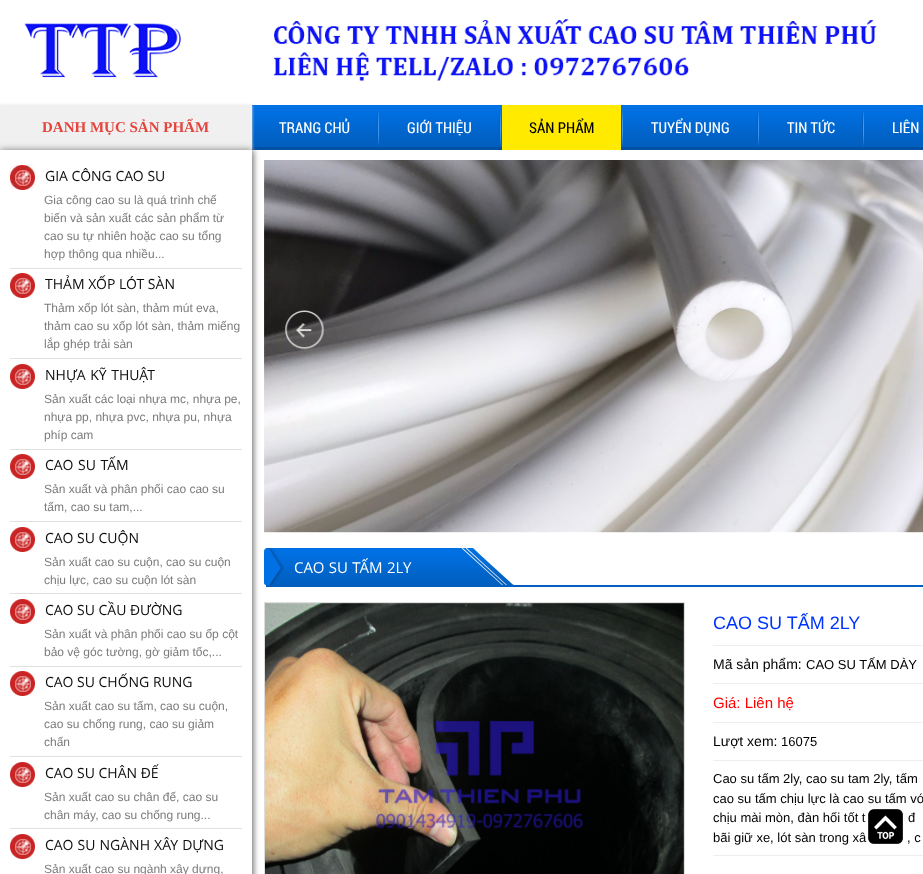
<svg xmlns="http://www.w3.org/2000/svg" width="923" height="874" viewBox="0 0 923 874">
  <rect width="100%" height="100%" fill="rgb(255,255,255)"/>
  <image x="24" y="19" width="853" height="62" href="pic1.png"/>
  <image x="252" y="105" width="671" height="45" href="pic2.png"/>
  <rect x="0" y="105" width="252" height="45" fill="rgb(228,228,228)" filter="blur(1.5px)"/>
  <rect x="0" y="151" width="252" height="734" fill="rgb(125,125,125)" filter="blur(3.5px)"/>
  <rect x="0" y="105" width="252" height="45" fill="rgb(240,240,240)"/>
  <text x="42" y="132" font-family="Liberation Serif" font-size="15" font-weight="bold" fill="rgb(228,68,62)">DANH MỤC SẢN PHẨM</text>
  <rect x="0" y="150" width="252" height="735" fill="rgb(125,125,125)" filter="blur(3.5px)"/>
  <rect x="0" y="150" width="252" height="724" fill="rgb(255,255,255)"/>
  <rect x="10" y="268" width="232" height="1" fill="rgb(224,224,224)"/>
  <image x="10" y="165" width="25" height="25" href="pic3.png"/>
  <text x="45" y="181" font-family="Open Sans" font-size="14" fill="rgb(14,14,14)">GIA CÔNG CAO SU</text>
  <g font-family="Liberation Sans" font-size="12" fill="rgb(123,123,123)">
    <text>
      <tspan x="44" y="204">Gia công cao su là quá trình chế</tspan>
      <tspan x="44" y="222">biến và sản xuất các sản phẩm từ</tspan>
      <tspan x="44" y="240">cao su tự nhiên hoặc cao su tổng</tspan>
      <tspan x="44" y="258">hợp thông qua nhiều...</tspan>
    </text>
  </g>
  <rect x="10" y="358" width="232" height="1" fill="rgb(224,224,224)"/>
  <image x="10" y="273" width="25" height="25" href="pic4.png"/>
  <text x="45" y="289" font-family="Open Sans" font-size="14" fill="rgb(14,14,14)">THẢM XỐP LÓT SÀN</text>
  <g font-family="Liberation Sans" font-size="12" fill="rgb(123,123,123)">
    <text>
      <tspan x="44" y="312">Thảm xốp lót sàn, thảm mút eva,</tspan>
      <tspan x="44" y="330">thảm cao su xốp lót sàn, thảm miếng</tspan>
      <tspan x="44" y="348">lắp ghép trải sàn</tspan>
    </text>
  </g>
  <rect x="10" y="449" width="232" height="1" fill="rgb(224,224,224)"/>
  <image x="10" y="364" width="25" height="25" href="pic4.png"/>
  <text x="45" y="380" word-spacing="1" font-family="Open Sans" font-size="14" fill="rgb(14,14,14)">NHỰA KỸ THUẬT</text>
  <g font-family="Liberation Sans" font-size="12" fill="rgb(123,123,123)">
    <text>
      <tspan x="44" y="403">Sản xuất các loại nhựa mc, nhựa pe,</tspan>
      <tspan x="44" y="421">nhựa pp, nhựa pvc, nhựa pu, nhựa</tspan>
      <tspan x="44" y="439">phíp cam</tspan>
    </text>
  </g>
  <rect x="10" y="521" width="232" height="1" fill="rgb(224,224,224)"/>
  <image x="10" y="454" width="25" height="25" href="pic4.png"/>
  <text x="45" y="470" word-spacing="1" font-family="Open Sans" font-size="14" fill="rgb(14,14,14)">CAO SU TẤM</text>
  <g font-family="Liberation Sans" font-size="12" fill="rgb(123,123,123)">
    <text>
      <tspan x="44" y="493">Sản xuất và phân phối cao cao su</tspan>
      <tspan x="44" y="511">tấm, cao su tam,...</tspan>
    </text>
  </g>
  <rect x="10" y="593" width="232" height="1" fill="rgb(224,224,224)"/>
  <image x="10" y="527" width="25" height="25" href="pic4.png"/>
  <text x="45" y="543" font-family="Open Sans" font-size="14" fill="rgb(14,14,14)">CAO SU CUỘN</text>
  <g font-family="Liberation Sans" font-size="12" fill="rgb(123,123,123)">
    <text>
      <tspan x="44" y="566">Sản xuất cao su cuộn, cao su cuộn</tspan>
      <tspan x="44" y="584">chịu lực, cao su cuộn lót sàn</tspan>
    </text>
  </g>
  <rect x="10" y="666" width="232" height="1" fill="rgb(224,224,224)"/>
  <image x="10" y="599" width="25" height="25" href="pic4.png"/>
  <text x="45" y="615" font-family="Open Sans" font-size="14" fill="rgb(14,14,14)">CAO SU CẦU ĐƯỜNG</text>
  <g font-family="Liberation Sans" font-size="12" fill="rgb(123,123,123)">
    <text>
      <tspan x="44" y="638">Sản xuất và phân phối cao su ốp cột</tspan>
      <tspan x="44" y="656">bảo vệ góc tường, gờ giảm tốc,...</tspan>
    </text>
  </g>
  <rect x="10" y="756" width="232" height="1" fill="rgb(224,224,224)"/>
  <image x="10" y="671" width="25" height="25" href="pic4.png"/>
  <text x="45" y="687" font-family="Open Sans" font-size="14" fill="rgb(14,14,14)">CAO SU CHỐNG RUNG</text>
  <g font-family="Liberation Sans" font-size="12" fill="rgb(123,123,123)">
    <text>
      <tspan x="44" y="710">Sản xuất cao su tấm, cao su cuộn,</tspan>
      <tspan x="44" y="728">cao su chống rung, cao su giảm</tspan>
      <tspan x="44" y="746">chấn</tspan>
    </text>
  </g>
  <rect x="10" y="828" width="232" height="1" fill="rgb(224,224,224)"/>
  <image x="10" y="762" width="25" height="25" href="pic4.png"/>
  <text x="45" y="778" font-family="Open Sans" font-size="14" fill="rgb(14,14,14)">CAO SU CHÂN ĐẾ</text>
  <g font-family="Liberation Sans" font-size="12" fill="rgb(123,123,123)">
    <text>
      <tspan x="44" y="801">Sản xuất cao su chân đế, cao su</tspan>
      <tspan x="44" y="819">chân máy, cao su chống rung...</tspan>
    </text>
  </g>
  <image x="10" y="834" width="25" height="25" href="pic4.png"/>
  <text x="45" y="850" word-spacing="0.5" font-family="Open Sans" font-size="14" fill="rgb(14,14,14)">CAO SU NGÀNH XÂY DỰNG</text>
  <text x="44" y="873" font-family="Liberation Sans" font-size="12" fill="rgb(123,123,123)">Sản xuất cao su ngành xây dựng,</text>
  <text x="279" y="133" font-family="Roboto Condensed" font-size="15" fill="rgb(255,255,255)">TRANG CHỦ</text>
  <image x="377" y="110" width="2" height="36" href="pic5.png"/>
  <text x="407" y="133" font-family="Roboto Condensed" font-size="15" fill="rgb(255,255,255)">GIỚI THIỆU</text>
  <image x="499" y="110" width="2" height="36" href="pic5.png"/>
  <rect x="502" y="105" width="119" height="45" fill="rgb(255,234,0)"/>
  <text x="529" y="133" font-family="Roboto Condensed" font-size="15" fill="rgb(0,0,0)">SẢN PHẨM</text>
  <image x="621" y="110" width="2" height="36" href="pic5.png"/>
  <text x="651" y="133" font-family="Roboto Condensed" font-size="15" fill="rgb(255,255,255)">TUYỂN DỤNG</text>
  <image x="757" y="110" width="2" height="36" href="pic5.png"/>
  <text x="787" y="133" font-family="Roboto Condensed" font-size="15" fill="rgb(255,255,255)">TIN TỨC</text>
  <image x="862" y="110" width="2" height="36" href="pic5.png"/>
  <text x="892" y="133" font-family="Roboto Condensed" font-size="15" fill="rgb(255,255,255)">LIÊN</text>
  <image x="264" y="160" width="659" height="373" href="pic6.png"/>
  <image x="285" y="310" width="40" height="40" href="pic7.png"/>
  <rect x="266" y="585" width="657" height="2" fill="rgb(1,95,191)"/>
  <image x="264" y="548" width="250" height="37" href="pic8.png"/>
  <text x="294" y="573" word-spacing="0.5" font-family="Open Sans" font-size="15" fill="rgb(255,255,255)">CAO SU TẤM 2LY</text>
  <rect x="264.5" y="602.5" width="420" height="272" fill="none" stroke="rgb(221,221,221)"/>
  <image x="265" y="603" width="419" height="271" href="pic9.png"/>
  <rect x="713" y="645" width="210" height="1" fill="rgb(238,238,238)"/>
  <text x="713" y="629" font-family="Liberation Sans" font-size="18" fill="rgb(0,51,255)">CAO SU TẤM 2LY</text>
  <rect x="713" y="683" width="210" height="1" fill="rgb(238,238,238)"/>
  <text x="713" y="669" font-family="Liberation Sans" font-size="14" fill="rgb(0,0,0)">Mã sản phẩm:</text>
  <text x="806" y="669" font-family="Liberation Sans" font-size="13" fill="rgb(0,0,0)">CAO SU TẤM DÀY</text>
  <rect x="713" y="722" width="210" height="1" fill="rgb(238,238,238)"/>
  <text x="713" y="708" font-family="Liberation Sans" font-size="15" fill="rgb(255,0,0)">Giá: Liên hệ</text>
  <rect x="713" y="760" width="210" height="1" fill="rgb(238,238,238)"/>
  <text x="713" y="746" font-family="Liberation Sans" font-size="14" fill="rgb(0,0,0)">Lượt xem:</text>
  <text x="781" y="746" font-family="Liberation Sans" font-size="13" fill="rgb(0,0,0)">16075</text>
  <rect x="713" y="855" width="210" height="1" fill="rgb(238,238,238)"/>
  <g font-family="Liberation Sans" font-size="13" fill="rgb(0,0,0)">
    <text>
      <tspan x="713" y="783">Cao su tấm 2ly, cao su tam 2ly, tấm</tspan>
      <tspan x="713" y="803">cao su tấm chịu lực là cao su tấm vớ</tspan>
      <tspan x="713" y="822">chịu mài mòn, đàn hối tốt t</tspan>
    </text>
    <text x="908" y="822">đ</text>
    <text x="713" y="842">bãi giữ xe, lót sàn trong xâ</text>
    <text x="907" y="842">, c</text>
  </g>
  <image x="868" y="809" width="35" height="35" href="pic10.png"/>
</svg>
